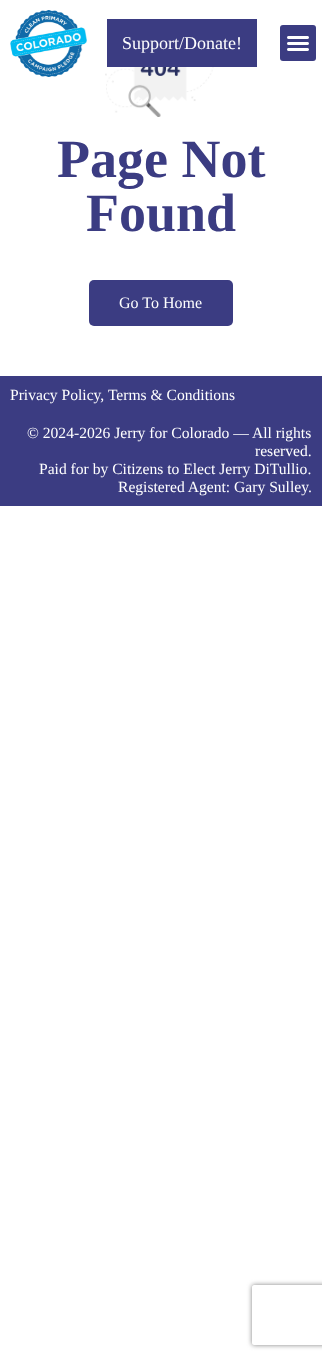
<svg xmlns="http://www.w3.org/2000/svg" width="322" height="1359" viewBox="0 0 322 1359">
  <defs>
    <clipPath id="clip1"><path d="M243 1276H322V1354H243ZM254 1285H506C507 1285 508 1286 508 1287V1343C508 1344 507 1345 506 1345H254C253 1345 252 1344 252 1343V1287C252 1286 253 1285 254 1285Z" clip-rule="evenodd"/></clipPath>
  </defs>
  <rect width="100%" height="100%" fill="rgb(255,255,255)"/>
  <image x="10" y="10" width="77" height="67" href="pic1.png"/>
  <image x="105" y="26" width="112" height="91" href="pic3.png"/>
  <rect x="107" y="19" width="150" height="48" fill="rgb(59,60,130)"/>
  <text x="122" y="49" font-family="Liberation Serif" font-size="18" fill="rgb(255,255,255)">Support/Donate!</text>
  <rect x="280" y="25" width="36" height="36" rx="3" fill="rgb(59,60,130)"/>
  <image x="287" y="36" width="22" height="15" href="pic2.png"/>
  <g font-family="Liberation Serif" font-size="54" font-weight="bold" fill="rgb(59,60,130)">
    <text x="57" y="177">Page Not</text>
    <text x="86" y="231">Found</text>
  </g>
  <rect x="89" y="280" width="144" height="46" rx="5" fill="rgb(59,60,130)"/>
  <text x="119" y="308" font-family="Liberation Serif" font-size="16" fill="rgb(255,255,255)">Go To Home</text>
  <rect x="0" y="376" width="322" height="130" fill="rgb(59,60,130)"/>
  <g font-family="Liberation Serif" font-size="15.6" fill="rgb(255,255,255)">
    <text x="10" y="400">Privacy Policy, Terms &amp; Conditions</text>
    <text x="27" y="438">© 2024-2026 Jerry for Colorado — All rights</text>
    <text x="255" y="456">reserved.</text>
    <text x="39" y="474">Paid for by Citizens to Elect Jerry DiTullio.</text>
    <text x="118" y="492">Registered Agent: Gary Sulley.</text>
  </g>
  <g clip-path="url(#clip1)">
    <rect x="252" y="1285" width="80" height="60" rx="2" fill="rgb(128,128,128)" filter="blur(2.5px)"/>
  </g>
</svg>
